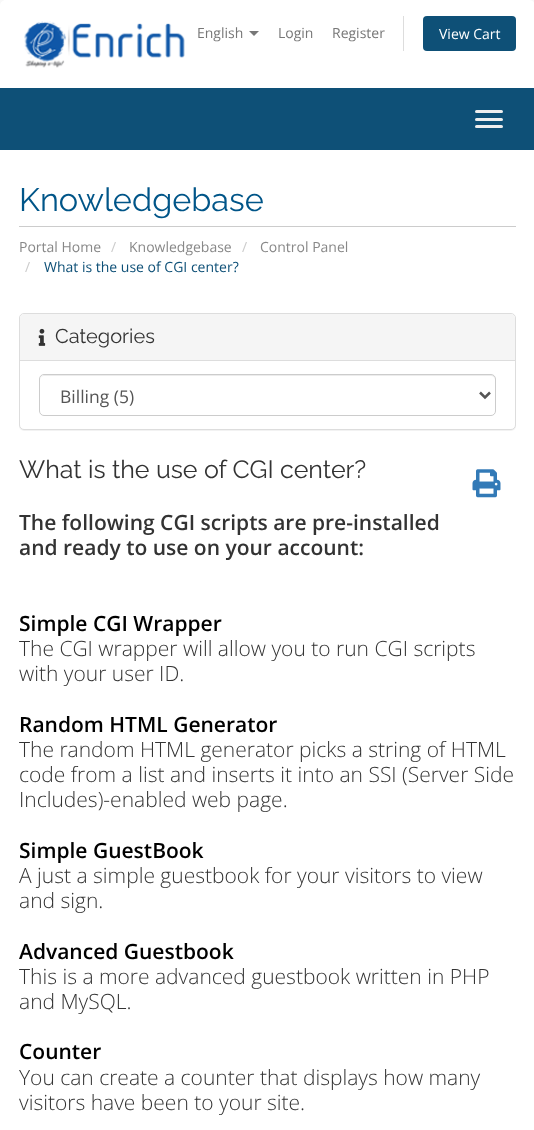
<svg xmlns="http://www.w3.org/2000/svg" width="534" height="1130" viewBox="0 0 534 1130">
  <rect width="100%" height="100%" fill="rgb(248,248,248)"/>
  <path d="M6 0H529C532.5 0 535 2.5 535 6V88H0V6C0 2.5 2.5 0 6 0Z" fill="rgb(255,255,255)"/>
  <image x="24" y="21" width="161" height="47" href="pic1.png"/>
  <text x="197" y="38" font-family="Open Sans" font-size="14" fill="rgb(119,119,119)">English</text>
  <path d="M249 31H259L254 36Z" fill="rgb(119,119,119)"/>
  <g font-family="Open Sans" font-size="14" fill="rgb(119,119,119)">
    <text x="278" y="38">Login</text>
    <text x="332" y="38">Register</text>
  </g>
  <rect x="403" y="16" width="1" height="35" fill="rgb(221,221,221)"/>
  <rect x="423" y="16" width="93" height="35" rx="4" fill="rgb(14,80,119)"/>
  <text x="439" y="39" font-family="Open Sans" font-size="14" fill="rgb(255,255,255)">View Cart</text>
  <rect x="0" y="88" width="534" height="62" fill="rgb(14,80,119)"/>
  <rect x="475" y="110" width="28" height="3" rx="1.5" fill="rgb(238,238,238)"/>
  <rect x="475" y="118" width="28" height="3" rx="1.5" fill="rgb(238,238,238)"/>
  <rect x="475" y="125" width="28" height="3" rx="1.5" fill="rgb(238,238,238)"/>
  <rect x="0" y="150" width="534" height="980" fill="rgb(255,255,255)"/>
  <rect x="19" y="226" width="497" height="1" fill="rgb(204,204,204)"/>
  <text x="19" y="211" font-family="Raleway" font-size="32.5" fill="rgb(0,85,136)">Knowledgebase</text>
  <text x="19" y="252" font-family="Open Sans" font-size="14" fill="rgb(136,136,136)">Portal Home</text>
  <text x="111" y="252" font-family="Open Sans" font-size="14" fill="rgb(204,204,204)">/</text>
  <text x="129" y="252" font-family="Open Sans" font-size="14" fill="rgb(136,136,136)">Knowledgebase</text>
  <text x="242" y="252" font-family="Open Sans" font-size="14" fill="rgb(204,204,204)">/</text>
  <text x="260" y="252" font-family="Open Sans" font-size="14" fill="rgb(136,136,136)">Control Panel</text>
  <text x="25" y="272" font-family="Open Sans" font-size="14" fill="rgb(204,204,204)">/</text>
  <text x="44" y="272" font-family="Open Sans" font-size="14" fill="rgb(14,80,119)">What is the use of CGI center?</text>
  <rect x="19" y="314" width="497" height="117" rx="5" fill="rgba(0,0,0,0.05)" filter="blur(0.5px)"/>
  <rect x="19.5" y="313.5" width="496" height="116" rx="4.5" fill="rgb(255,255,255)" stroke="rgb(221,221,221)"/>
  <path d="M24 314H511C513 314 515 316 515 318V361H20V318C20 316 22 314 24 314Z" fill="rgb(245,245,245)"/>
  <rect x="20" y="360" width="495" height="1" fill="rgb(221,221,221)"/>
  <image x="38" y="328" width="8" height="18" href="pic2.png"/>
  <text x="55" y="343" font-family="Raleway" font-size="20" fill="rgb(51,51,51)">Categories</text>
  <path d="M44 376H491C493 376 495 378 495 380C495 377 494 375 491 375H44L42 376L41 377L40 380C40 378 42 376 44 376Z" fill="rgb(236,236,236)"/>
  <rect x="39.5" y="374.5" width="456" height="41" rx="4.5" fill="none" stroke="rgb(204,204,204)"/>
  <path d="M480 392.5L485 397.5L490 392.5" fill="none" stroke="rgb(85,85,85)" stroke-width="2.5"/>
  <text x="60" y="403" font-family="Open Sans" font-size="17.5" fill="rgb(85,85,85)">Billing (5)</text>
  <text x="19" y="478" font-family="Raleway" font-size="25" fill="rgb(51,51,51)">What is the use of CGI center?</text>
  <image x="472" y="469" width="29" height="29" href="pic3.png"/>
  <g font-family="Open Sans" font-size="21" font-weight="600" fill="rgb(51,51,51)">
    <text>
      <tspan x="19" y="530">The following CGI scripts are pre-installed</tspan>
      <tspan x="19" y="555">and ready to use on your account:</tspan>
    </text>
  </g>
  <text x="19" y="631" font-family="Open Sans" font-size="21" font-weight="600" fill="rgb(0,0,0)">Simple CGI Wrapper</text>
  <g font-family="Open Sans" font-size="21" font-weight="300" fill="rgb(51,51,51)">
    <text>
      <tspan x="19" y="656">The CGI wrapper will allow you to run CGI scripts</tspan>
      <tspan x="19" y="681">with your user ID.</tspan>
    </text>
  </g>
  <text x="19" y="732" font-family="Open Sans" font-size="21" font-weight="600" fill="rgb(0,0,0)">Random HTML Generator</text>
  <g font-family="Open Sans" font-size="21" font-weight="300" fill="rgb(51,51,51)">
    <text>
      <tspan x="19" y="757">The random HTML generator picks a string of HTML</tspan>
      <tspan x="19" y="782">code from a list and inserts it into an SSI (Server Side</tspan>
      <tspan x="19" y="807">Includes)-enabled web page.</tspan>
    </text>
  </g>
  <text x="19" y="858" font-family="Open Sans" font-size="21" font-weight="600" fill="rgb(0,0,0)">Simple GuestBook</text>
  <g font-family="Open Sans" font-size="21" font-weight="300" fill="rgb(51,51,51)">
    <text>
      <tspan x="19" y="883">A just a simple guestbook for your visitors to view</tspan>
      <tspan x="19" y="908">and sign.</tspan>
    </text>
  </g>
  <text x="19" y="959" font-family="Open Sans" font-size="21" font-weight="600" fill="rgb(0,0,0)">Advanced Guestbook</text>
  <g font-family="Open Sans" font-size="21" font-weight="300" fill="rgb(51,51,51)">
    <text>
      <tspan x="19" y="984">This is a more advanced guestbook written in PHP</tspan>
      <tspan x="19" y="1009">and MySQL.</tspan>
    </text>
  </g>
  <text x="19" y="1059" font-family="Open Sans" font-size="21" font-weight="600" fill="rgb(0,0,0)">Counter</text>
  <g font-family="Open Sans" font-size="21" font-weight="300" fill="rgb(51,51,51)">
    <text>
      <tspan x="19" y="1085">You can create a counter that displays how many</tspan>
      <tspan x="19" y="1110">visitors have been to your site.</tspan>
    </text>
  </g>
</svg>
